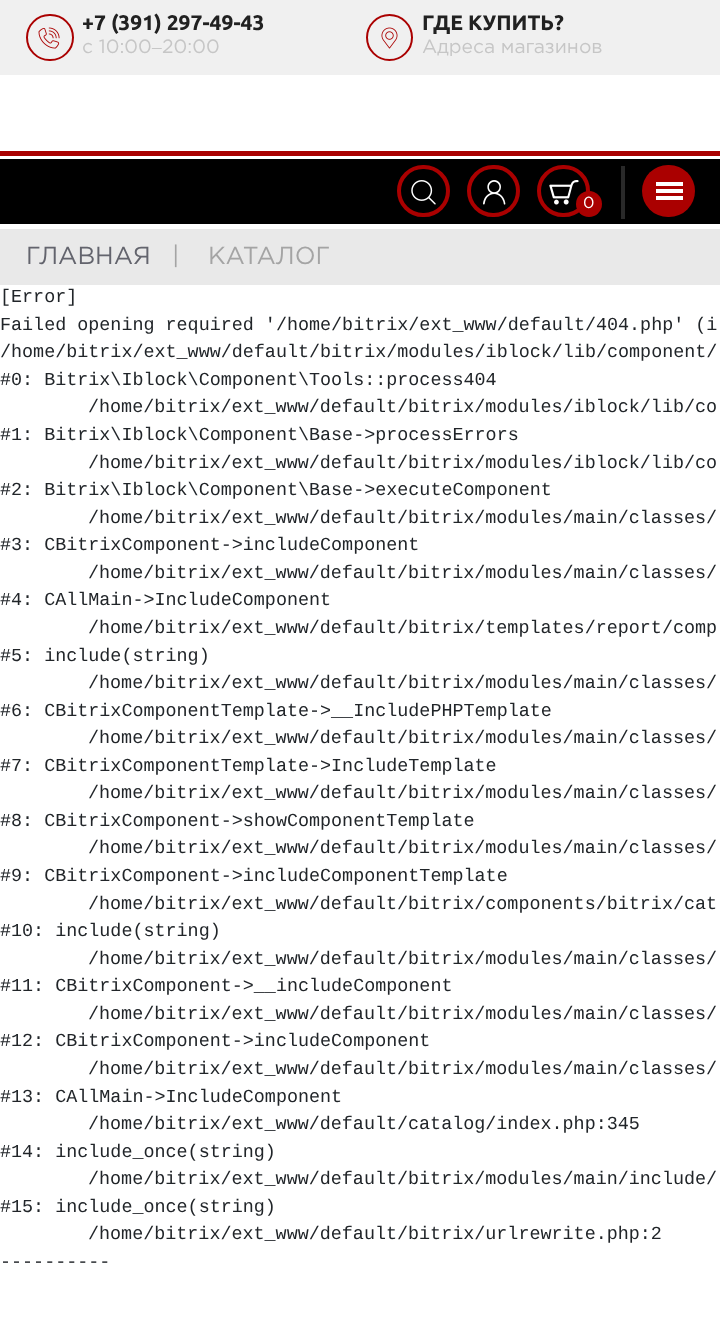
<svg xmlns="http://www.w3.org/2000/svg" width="720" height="1324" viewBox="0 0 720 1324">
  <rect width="100%" height="100%" fill="rgb(255,255,255)"/>
  <rect x="0" y="0" width="720" height="75" fill="rgb(240,240,240)"/>
  <rect x="27" y="15" width="46" height="45" rx="22.5" fill="none" stroke="rgb(170,0,0)" stroke-width="2"/>
  <image x="38" y="27" width="22" height="22" href="pic1.png"/>
  <text x="82" y="30" font-family="Ubuntu" font-size="21" font-weight="bold" fill="rgb(33,33,33)">+7 (391) 297-49-43</text>
  <text x="82" y="53" font-family="Gotham" font-size="19.25" fill="rgb(198,198,198)">с 10:00</text>
  <text x="152" y="53" font-family="Liberation Serif" font-size="19.25" fill="rgb(198,198,198)">‒</text>
  <text x="162" y="53" font-family="Gotham" font-size="19.25" fill="rgb(198,198,198)">20:00</text>
  <circle cx="389.5" cy="37.5" r="22.5" fill="none" stroke="rgb(170,0,0)" stroke-width="2"/>
  <image x="381" y="27" width="17" height="22" href="pic2.png"/>
  <text x="422" y="30" font-family="Ubuntu" font-size="21" font-weight="bold" fill="rgb(33,33,33)">ГДЕ КУПИТЬ?</text>
  <text x="422" y="53" font-family="Gotham" font-size="19.25" fill="rgb(198,198,198)">Адреса магазинов</text>
  <rect x="0" y="159" width="720" height="65" fill="rgb(0,0,0)"/>
  <rect x="0" y="151" width="720" height="5" fill="rgb(170,0,0)"/>
  <rect x="399" y="167" width="49" height="48" rx="24" fill="none" stroke="rgb(170,0,0)" stroke-width="4"/>
  <image x="411" y="180" width="25" height="25" href="pic3.png"/>
  <rect x="469" y="167" width="49" height="48" rx="24" fill="none" stroke="rgb(170,0,0)" stroke-width="4"/>
  <image x="483" y="180" width="23" height="25" href="pic4.png"/>
  <rect x="539" y="167" width="49" height="48" rx="24" fill="none" stroke="rgb(170,0,0)" stroke-width="4"/>
  <image x="549" y="180" width="30" height="25" href="pic5.png"/>
  <circle cx="589" cy="204" r="13" fill="rgb(170,0,0)"/>
  <text x="583" y="208" font-family="Gotham" font-size="16" fill="rgb(255,255,255)">0</text>
  <rect x="642" y="165" width="53" height="52" rx="26" fill="rgb(170,0,0)"/>
  <rect x="621" y="166" width="4" height="53" fill="rgb(41,41,41)"/>
  <rect x="656" y="189" width="27" height="4" fill="rgb(255,255,255)"/>
  <rect x="656" y="182" width="27" height="4" fill="rgb(255,255,255)"/>
  <rect x="656" y="196" width="27" height="4" fill="rgb(255,255,255)"/>
  <rect x="0" y="229" width="720" height="56" fill="rgb(233,233,233)"/>
  <text x="26" y="264" font-family="Gotham" font-size="24.5" fill="rgb(99,100,109)">ГЛАВНАЯ</text>
  <g font-family="Gotham" font-size="24.5" fill="rgb(164,164,164)">
    <text x="172" y="264">|</text>
    <text x="208" y="264">КАТАЛОГ</text>
  </g>
  <g font-family="Liberation Mono" font-size="18.4" fill="rgb(33,37,41)">
    <text>
      <tspan x="0" y="302">[Error]</tspan>
      <tspan x="0" y="330">Failed opening required '/home/bitrix/ext_www/default/404.php' (i</tspan>
      <tspan x="0" y="357">/home/bitrix/ext_www/default/bitrix/modules/iblock/lib/component/</tspan>
      <tspan x="0" y="385">#0: Bitrix\Iblock\Component\Tools::process404</tspan>
    </text>
    <text x="88" y="412">/home/bitrix/ext_www/default/bitrix/modules/iblock/lib/co</text>
    <text x="0" y="440">#1: Bitrix\Iblock\Component\Base-&gt;processErrors</text>
    <text x="88" y="468">/home/bitrix/ext_www/default/bitrix/modules/iblock/lib/co</text>
    <text x="0" y="495">#2: Bitrix\Iblock\Component\Base-&gt;executeComponent</text>
    <text x="88" y="523">/home/bitrix/ext_www/default/bitrix/modules/main/classes/</text>
    <text x="0" y="550">#3: CBitrixComponent-&gt;includeComponent</text>
    <text x="88" y="578">/home/bitrix/ext_www/default/bitrix/modules/main/classes/</text>
    <text x="0" y="605">#4: CAllMain-&gt;IncludeComponent</text>
    <text x="88" y="633">/home/bitrix/ext_www/default/bitrix/templates/report/comp</text>
    <text x="0" y="661">#5: include(string)</text>
    <text x="88" y="688">/home/bitrix/ext_www/default/bitrix/modules/main/classes/</text>
    <text x="0" y="716">#6: CBitrixComponentTemplate-&gt;__IncludePHPTemplate</text>
    <text x="88" y="743">/home/bitrix/ext_www/default/bitrix/modules/main/classes/</text>
    <text x="0" y="771">#7: CBitrixComponentTemplate-&gt;IncludeTemplate</text>
    <text x="88" y="798">/home/bitrix/ext_www/default/bitrix/modules/main/classes/</text>
    <text x="0" y="826">#8: CBitrixComponent-&gt;showComponentTemplate</text>
    <text x="88" y="853">/home/bitrix/ext_www/default/bitrix/modules/main/classes/</text>
    <text x="0" y="881">#9: CBitrixComponent-&gt;includeComponentTemplate</text>
    <text x="88" y="909">/home/bitrix/ext_www/default/bitrix/components/bitrix/cat</text>
    <text x="0" y="936">#10: include(string)</text>
    <text x="88" y="964">/home/bitrix/ext_www/default/bitrix/modules/main/classes/</text>
    <text x="0" y="991">#11: CBitrixComponent-&gt;__includeComponent</text>
    <text x="88" y="1019">/home/bitrix/ext_www/default/bitrix/modules/main/classes/</text>
    <text x="0" y="1046">#12: CBitrixComponent-&gt;includeComponent</text>
    <text x="88" y="1074">/home/bitrix/ext_www/default/bitrix/modules/main/classes/</text>
    <text x="0" y="1102">#13: CAllMain-&gt;IncludeComponent</text>
    <text x="88" y="1129">/home/bitrix/ext_www/default/catalog/index.php:345</text>
    <text x="0" y="1157">#14: include_once(string)</text>
    <text x="88" y="1184">/home/bitrix/ext_www/default/bitrix/modules/main/include/</text>
    <text x="0" y="1212">#15: include_once(string)</text>
    <text x="88" y="1239">/home/bitrix/ext_www/default/bitrix/urlrewrite.php:2</text>
    <text x="0" y="1267">----------</text>
  </g>
</svg>
